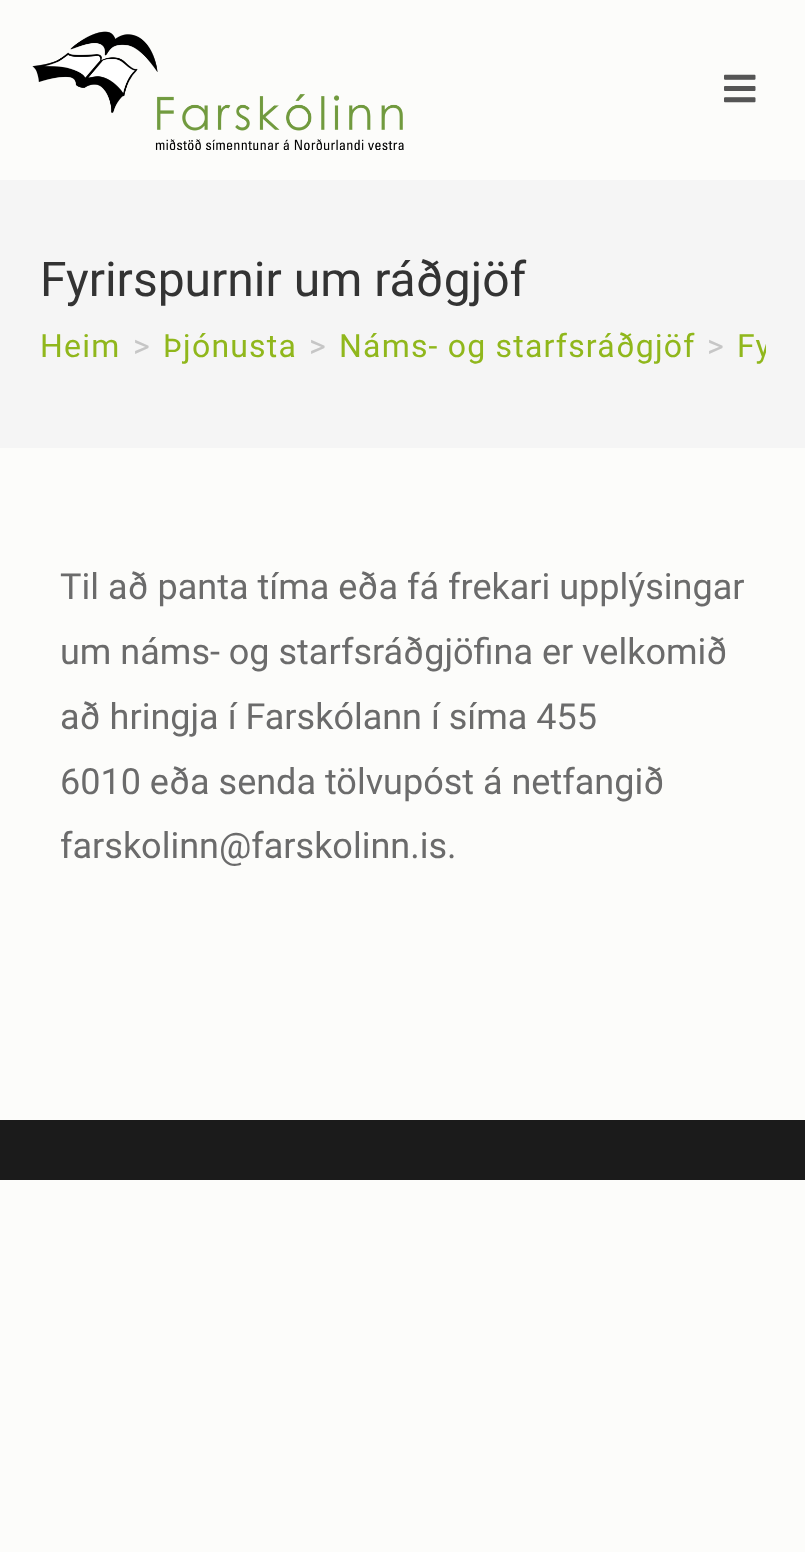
<svg xmlns="http://www.w3.org/2000/svg" width="805" height="1552" viewBox="0 0 805 1552">
  <defs>
    <clipPath id="clip1"><rect x="40" y="316" width="726" height="64"/></clipPath>
  </defs>
  <rect width="100%" height="100%" fill="rgb(252,252,250)"/>
  <image x="32" y="31" width="372" height="119" href="pic1.png"/>
  <image x="724" y="74" width="32" height="29" href="pic2.png"/>
  <rect x="0" y="180" width="805" height="268" fill="rgb(245,245,245)"/>
  <text x="40" y="296" font-family="Roboto" font-size="48" fill="rgb(51,51,51)">Fyrirspurnir um ráðgjöf</text>
  <text x="40" y="357" font-family="Roboto" font-size="32" letter-spacing="1.2" fill="rgb(144,183,28)">Heim</text>
  <text x="133" y="357" font-family="Roboto" font-size="32" letter-spacing="1.2" fill="rgb(198,198,198)">&gt;</text>
  <text x="163" y="357" font-family="Roboto" font-size="32" letter-spacing="1.2" fill="rgb(144,183,28)">Þjónusta</text>
  <text x="309" y="357" font-family="Roboto" font-size="32" letter-spacing="1.2" fill="rgb(198,198,198)">&gt;</text>
  <text x="339" y="357" font-family="Roboto" font-size="32" letter-spacing="1.2" fill="rgb(144,183,28)">Náms- og starfsráðgjöf</text>
  <text x="707" y="357" font-family="Roboto" font-size="32" letter-spacing="1.2" fill="rgb(198,198,198)">&gt;</text>
  <g clip-path="url(#clip1)">
    <text x="737" y="357" font-family="Roboto" font-size="32" letter-spacing="1.2" fill="rgb(144,183,28)">Fy</text>
  </g>
  <g font-family="Roboto" font-size="36" fill="rgb(107,107,107)">
    <text>
      <tspan x="60" y="599">Til að panta tíma eða fá frekari upplýsingar</tspan>
      <tspan x="60" y="664">um náms- og starfsráðgjöfina er velkomið</tspan>
      <tspan x="60" y="729">að hringja í Farskólann í síma 455</tspan>
      <tspan x="60" y="794">6010 eða senda tölvupóst á netfangið</tspan>
      <tspan x="60" y="858">farskolinn@farskolinn.is.</tspan>
    </text>
  </g>
  <rect x="0" y="1120" width="805" height="60" fill="rgb(27,27,27)"/>
</svg>
